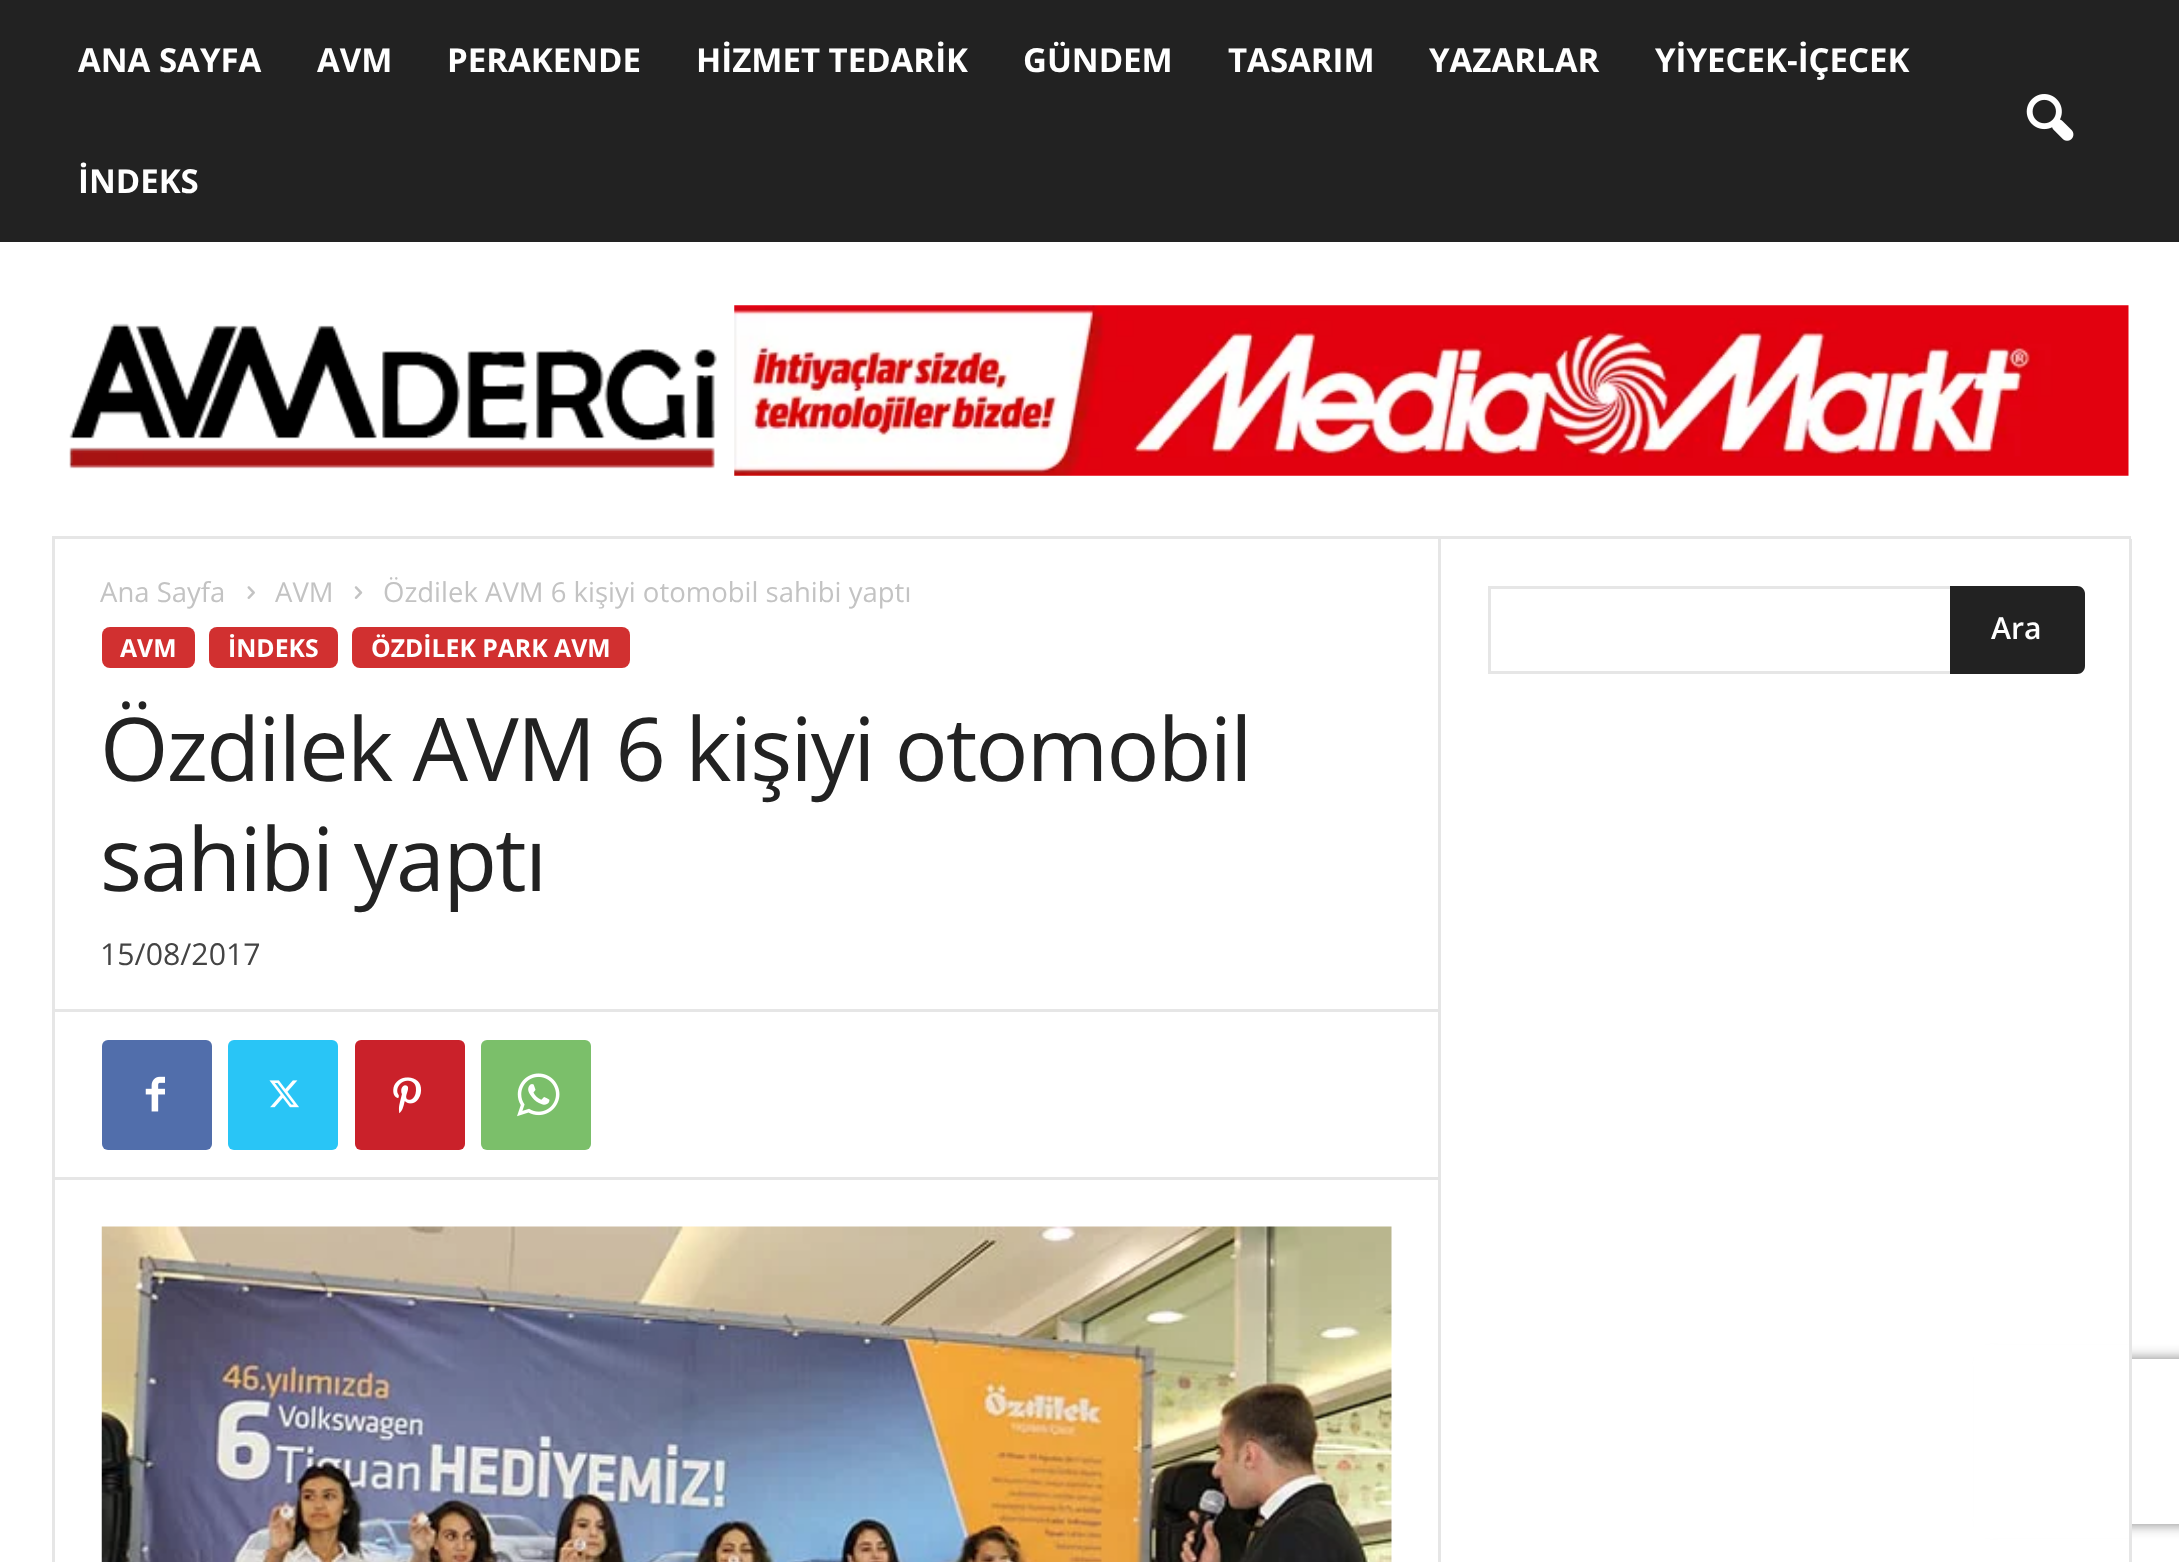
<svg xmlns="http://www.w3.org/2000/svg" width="2179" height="1562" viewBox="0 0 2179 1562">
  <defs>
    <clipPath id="clip1"><path d="M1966 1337H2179V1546H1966ZM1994 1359H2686C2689.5 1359 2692 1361.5 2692 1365V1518C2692 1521.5 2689.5 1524 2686 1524H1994C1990.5 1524 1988 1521.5 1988 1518V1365C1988 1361.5 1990.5 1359 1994 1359Z" clip-rule="evenodd"/></clipPath>
  </defs>
  <rect width="100%" height="100%" fill="rgb(255,255,255)"/>
  <rect x="0" y="0" width="2179" height="242" fill="rgb(34,34,34)"/>
  <g font-family="Open Sans" font-size="33" font-weight="bold" fill="rgb(255,255,255)">
    <text x="78" y="72">ANA SAYFA</text>
    <text x="317" y="72">AVM</text>
    <text x="447" y="72">PERAKENDE</text>
    <text x="696" y="72">HİZMET TEDARİK</text>
    <text x="1023" y="72">GÜNDEM</text>
    <text x="1228" y="72">TASARIM</text>
    <text x="1429" y="72">YAZARLAR</text>
    <text x="1655" y="72">YİYECEK-İÇECEK</text>
    <text x="78" y="193">İNDEKS</text>
  </g>
  <image x="2026" y="94" width="48" height="47" href="pic1.png"/>
  <rect x="52" y="536" width="2079" height="3" fill="rgb(230,230,230)"/>
  <image x="69" y="323" width="648" height="146" href="pic2.png"/>
  <image x="734" y="305" width="1395" height="171" href="pic3.png"/>
  <g clip-path="url(#clip1)">
    <rect x="1988" y="1359" width="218" height="165" rx="6" fill="rgb(128,128,128)" filter="blur(7px)"/>
  </g>
  <rect x="1974" y="1345" width="155" height="193" fill="rgb(255,255,255)"/>
  <rect x="52" y="539" width="3" height="1023" fill="rgb(230,230,230)"/>
  <text x="100" y="602" font-family="Open Sans" font-size="27.5" fill="rgb(195,195,195)">Ana Sayfa</text>
  <image x="247" y="586" width="8" height="13" href="pic4.png"/>
  <text x="275" y="602" font-family="Open Sans" font-size="27.5" fill="rgb(195,195,195)">AVM</text>
  <image x="354" y="586" width="9" height="13" href="pic5.png"/>
  <text x="383" y="602" font-family="Open Sans" font-size="27.5" fill="rgb(195,195,195)">Özdilek AVM 6 kişiyi otomobil sahibi yaptı</text>
  <rect x="102" y="627" width="93" height="41" rx="8" fill="rgb(209,48,48)"/>
  <text x="120" y="657" font-family="Open Sans" font-size="24.75" font-weight="bold" fill="rgb(255,255,255)">AVM</text>
  <rect x="209" y="627" width="129" height="41" rx="8" fill="rgb(209,48,48)"/>
  <text x="228" y="657" font-family="Open Sans" font-size="24.75" font-weight="bold" fill="rgb(255,255,255)">İNDEKS</text>
  <rect x="352" y="627" width="278" height="41" rx="8" fill="rgb(209,48,48)"/>
  <text x="371" y="657" font-family="Open Sans" font-size="24.75" font-weight="bold" fill="rgb(255,255,255)">ÖZDİLEK PARK AVM</text>
  <g font-family="Open Sans" font-size="88" letter-spacing="-1.75" fill="rgb(34,34,34)">
    <text>
      <tspan x="100" y="781">Özdilek AVM 6 kişiyi otomobil</tspan>
      <tspan x="100" y="891">sahibi yaptı</tspan>
    </text>
  </g>
  <text x="100" y="965" font-family="Open Sans" font-size="30.25" fill="rgb(68,68,68)">15/08/2017</text>
  <rect x="55" y="1009" width="1383" height="3" fill="rgb(230,230,230)"/>
  <rect x="102" y="1040" width="110" height="110" rx="6" fill="rgb(81,110,171)"/>
  <image x="145" y="1076" width="20" height="36" href="pic6.png"/>
  <rect x="228" y="1040" width="110" height="110" rx="6" fill="rgb(41,197,246)"/>
  <image x="269" y="1080" width="30" height="28" href="pic7.png"/>
  <rect x="355" y="1040" width="110" height="110" rx="6" fill="rgb(202,33,42)"/>
  <image x="393" y="1077" width="29" height="37" href="pic8.png"/>
  <rect x="481" y="1040" width="110" height="110" rx="6" fill="rgb(123,191,106)"/>
  <image x="517" y="1073" width="43" height="44" href="pic9.png"/>
  <rect x="55" y="1177" width="1383" height="3" fill="rgb(230,230,230)"/>
  <image x="101" y="1226" width="1291" height="336" href="pic10.png"/>
  <rect x="1438" y="539" width="3" height="1023" fill="rgb(230,230,230)"/>
  <rect x="1488" y="586" width="462" height="3" fill="rgb(230,230,230)"/>
  <rect x="1488" y="671" width="462" height="3" fill="rgb(230,230,230)"/>
  <rect x="1488" y="586" width="3" height="88" fill="rgb(230,230,230)"/>
  <path d="M1950 586H2077C2081.5 586 2085 589.5 2085 594V666C2085 670.5 2081.5 674 2077 674H1950Z" fill="rgb(34,34,34)"/>
  <text x="1991" y="639" font-family="Open Sans" font-size="30.25" font-weight="600" fill="rgb(255,255,255)">Ara</text>
  <rect x="2129" y="539" width="3" height="1023" fill="rgb(230,230,230)"/>
</svg>
